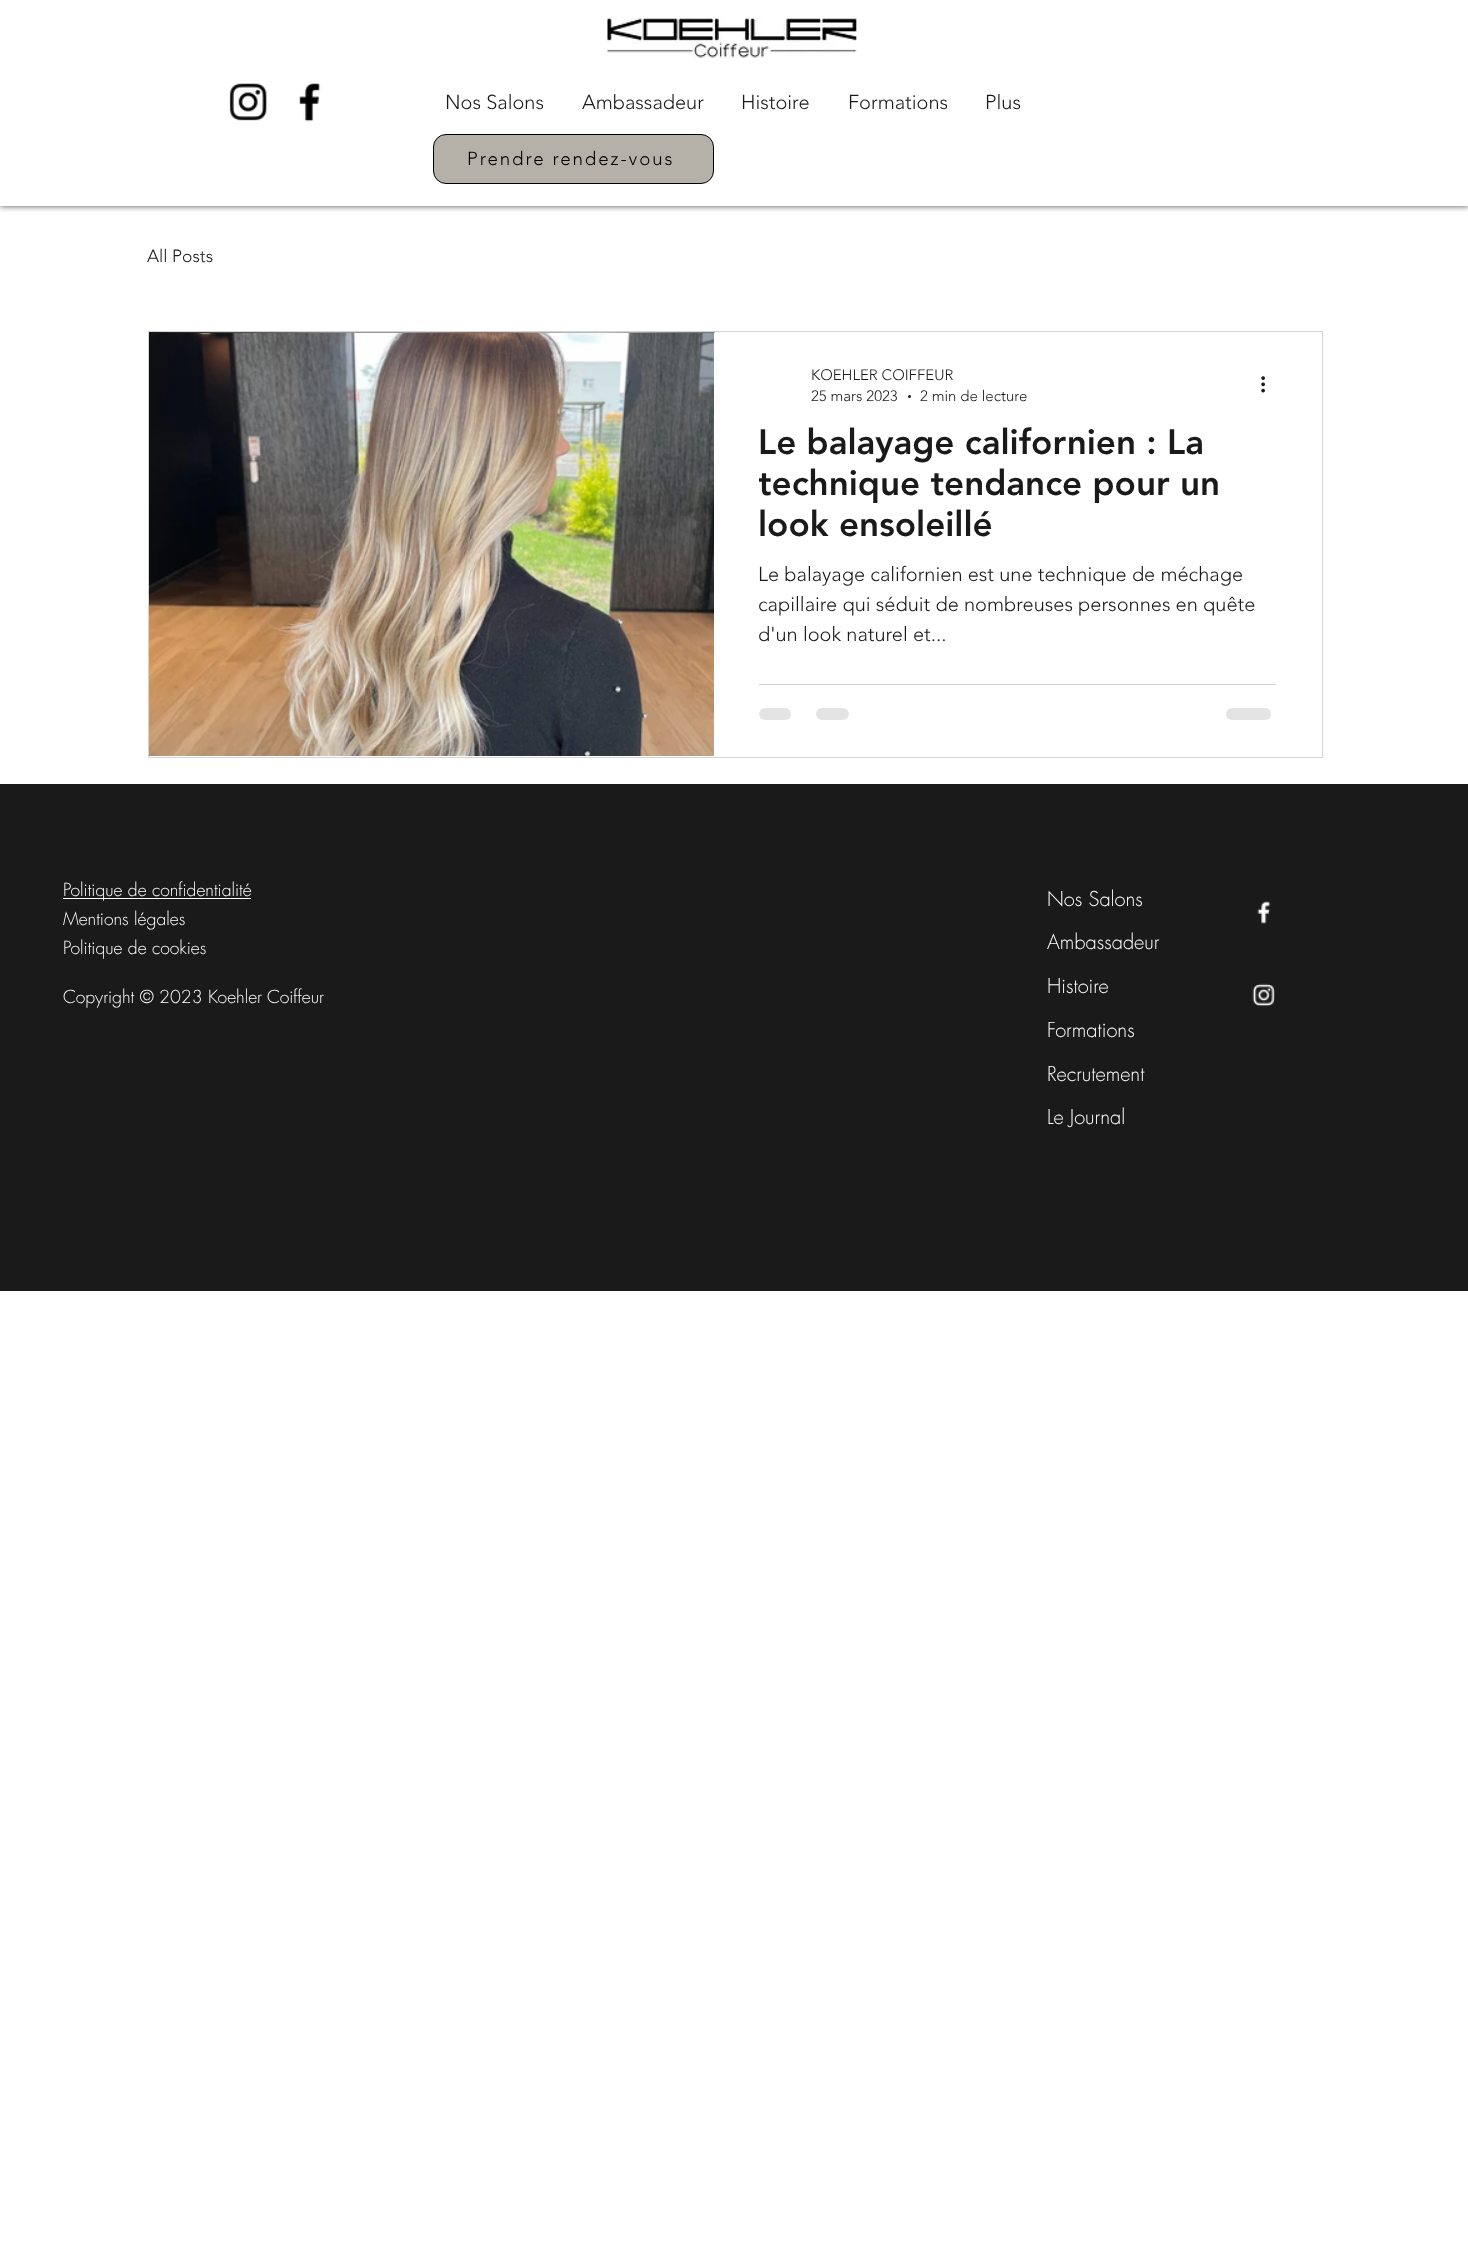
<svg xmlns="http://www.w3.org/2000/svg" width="1468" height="2245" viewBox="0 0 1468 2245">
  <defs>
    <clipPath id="clip1"><rect x="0" y="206" width="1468" height="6"/></clipPath>
    <clipPath id="clip2"><rect x="759" y="421" width="517" height="124"/></clipPath>
  </defs>
  <rect width="100%" height="100%" fill="rgb(255,255,255)"/>
  <g clip-path="url(#clip1)">
    <rect x="0" y="0" width="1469" height="206" fill="rgba(0,0,0,0.7)" filter="blur(3px)"/>
  </g>
  <image x="607" y="18" width="250" height="41" href="pic1.png"/>
  <image x="229" y="83" width="38" height="38" href="pic2.png"/>
  <image x="298" y="83" width="23" height="39" href="pic3.png"/>
  <g font-family="'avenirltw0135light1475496'" font-size="20" font-weight="300" fill="rgb(26,26,26)">
    <text x="445" y="109">Nos Salons</text>
    <text x="582" y="109">Ambassadeur</text>
    <text x="741" y="109">Histoire</text>
    <text x="848" y="109">Formations</text>
    <text x="985" y="109">Plus</text>
  </g>
  <rect x="433.5" y="134.5" width="280" height="49" rx="12.5" fill="rgb(181,177,169)" stroke="rgb(0,0,0)"/>
  <text x="467" y="165" font-family="'avenirltw0135light1475496'" font-size="18.75" font-weight="300" letter-spacing="1.9" fill="rgb(0,0,0)">Prendre rendez-vous</text>
  <text x="147" y="262" font-family="'avenirltw0135light1475496'" font-size="17.5" font-weight="300" fill="rgb(26,26,26)">All Posts</text>
  <rect x="148.5" y="331.5" width="1174" height="426" fill="none" stroke="rgb(212,212,212)"/>
  <image x="149" y="332" width="566" height="1" href="pic4.png"/>
  <image x="149" y="333" width="565" height="423" href="pic5.png"/>
  <g font-family="'avenirltw0135light1475496'" font-size="15" font-weight="300" fill="rgb(26,26,26)">
    <text>
      <tspan x="811" y="380">KOEHLER COIFFEUR</tspan>
      <tspan x="811" y="401">25 mars 2023</tspan>
    </text>
  </g>
  <circle cx="909.5" cy="396.5" r="1.5" fill="rgb(26,26,26)"/>
  <text x="920" y="401" font-family="'avenirltw0135light1475496'" font-size="15" font-weight="300" fill="rgb(26,26,26)">2 min de lecture</text>
  <image x="1261" y="376" width="4" height="17" href="pic6.png"/>
  <text x="758" y="454" font-family="'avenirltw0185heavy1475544'" font-size="35" font-weight="900" fill="rgb(26,26,26)">Le balayage californien : La</text>
  <g clip-path="url(#clip2)">
    <text x="758" y="495" font-family="'avenirltw0185heavy1475544'" font-size="35" font-weight="900" fill="rgb(26,26,26)">technique tendance pour un</text>
  </g>
  <text x="758" y="536" font-family="'avenirltw0185heavy1475544'" font-size="35" font-weight="900" fill="rgb(26,26,26)">look ensoleillé</text>
  <g font-family="'avenirltw0135light1475496'" font-size="20" font-weight="300" fill="rgb(26,26,26)">
    <text>
      <tspan x="758" y="581">Le balayage californien est une technique de méchage</tspan>
      <tspan x="758" y="611">capillaire qui séduit de nombreuses personnes en quête</tspan>
      <tspan x="758" y="641">d'un look naturel et...</tspan>
    </text>
  </g>
  <rect x="759" y="684" width="517" height="1" fill="rgb(209,209,209)"/>
  <rect x="759" y="708" width="32" height="12" rx="6" fill="rgb(228,228,228)"/>
  <rect x="816" y="708" width="33" height="12" rx="6" fill="rgb(228,228,228)"/>
  <rect x="1226" y="708" width="45" height="12" rx="6" fill="rgb(228,228,228)"/>
  <rect x="0" y="784" width="1468" height="507" fill="rgb(26,26,26)"/>
  <rect x="63" y="898" width="188" height="1" fill="rgb(255,255,255)"/>
  <g font-family="futura" font-size="17.5" font-weight="300" fill="rgb(255,255,255)">
    <text>
      <tspan x="63" y="896">Politique de confidentialité</tspan>
      <tspan x="63" y="925">Mentions légales</tspan>
      <tspan x="63" y="954">Politique de cookies</tspan>
    </text>
    <text x="63" y="1003">Copyright © 2023 Koehler Coiffeur</text>
  </g>
  <g font-family="futura" font-size="20" font-weight="300" fill="rgb(255,255,255)">
    <text x="1047" y="906">Nos Salons</text>
    <text x="1047" y="949">Ambassadeur</text>
    <text x="1047" y="993">Histoire</text>
    <text x="1047" y="1037">Formations</text>
    <text x="1047" y="1081">Recrutement</text>
    <text x="1047" y="1124">Le Journal</text>
  </g>
  <image x="1257" y="901" width="14" height="23" href="pic7.png"/>
  <image x="1252" y="983" width="23" height="24" href="pic8.png"/>
</svg>
